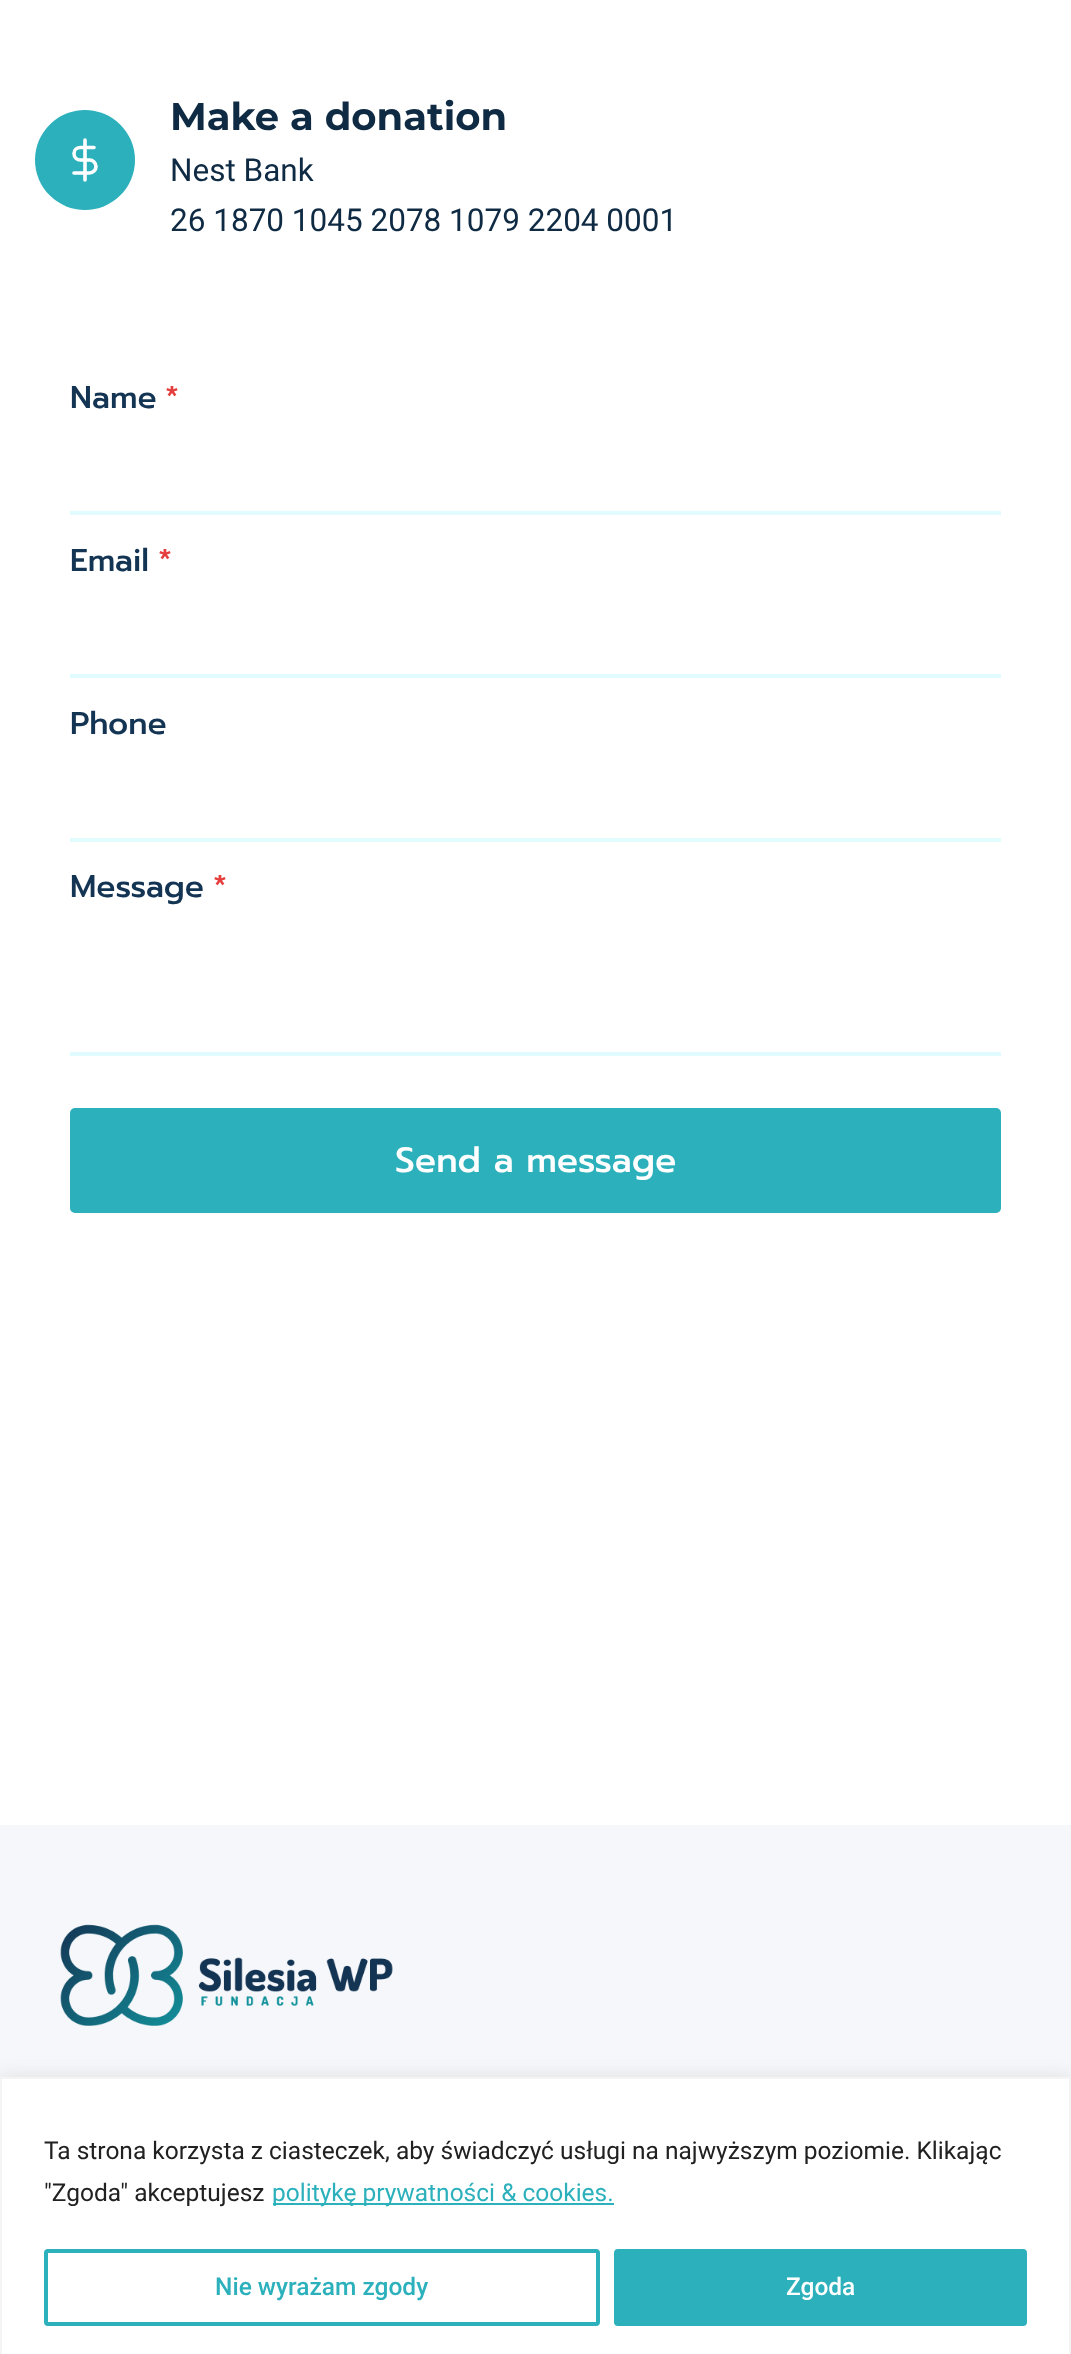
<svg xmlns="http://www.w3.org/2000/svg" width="1071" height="2354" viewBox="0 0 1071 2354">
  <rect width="100%" height="100%" fill="rgb(255,255,255)"/>
  <circle cx="85" cy="160" r="50" fill="rgb(44,177,188)"/>
  <path d="M85 140V180M94 147.5H80.5C77 147.5 74 150 74 153.5C74 157.5 77 160 80.5 160H89.5C93 160 96 163 96 166.5C96 170 93 173 89.5 173H74" fill="none" stroke="rgb(255,255,255)" stroke-width="3.6" stroke-linecap="round" stroke-linejoin="round"/>
  <text x="170" y="130" font-family="Montserrat" font-size="38.5" font-weight="bold" fill="rgb(15,42,67)">Make a donation</text>
  <g font-family="Roboto" font-size="31.5" fill="rgb(15,42,67)">
    <text>
      <tspan x="170" y="181">Nest Bank</tspan>
      <tspan x="170" y="231">26 1870 1045 2078 1079 2204 0001</tspan>
    </text>
  </g>
  <text x="70" y="408" font-family="Prompt" font-size="31.5" font-weight="500" fill="rgb(19,52,83)">Name</text>
  <text x="165" y="408" font-family="Prompt" font-size="31.5" font-weight="500" fill="rgb(229,62,62)">*</text>
  <rect x="70" y="511" width="931" height="4" fill="rgb(224,252,255)"/>
  <text x="70" y="571" font-family="Prompt" font-size="31.5" font-weight="500" fill="rgb(19,52,83)">Email</text>
  <text x="158" y="571" font-family="Prompt" font-size="31.5" font-weight="500" fill="rgb(229,62,62)">*</text>
  <rect x="70" y="674" width="931" height="4" fill="rgb(224,252,255)"/>
  <text x="70" y="734" font-family="Prompt" font-size="31.5" font-weight="500" fill="rgb(19,52,83)">Phone</text>
  <rect x="70" y="838" width="931" height="4" fill="rgb(224,252,255)"/>
  <text x="70" y="897" font-family="Prompt" font-size="31.5" font-weight="500" fill="rgb(19,52,83)">Message</text>
  <text x="213" y="897" font-family="Prompt" font-size="31.5" font-weight="500" fill="rgb(229,62,62)">*</text>
  <rect x="70" y="1052" width="931" height="4" fill="rgb(224,252,255)"/>
  <rect x="70" y="1108" width="931" height="105" rx="5" fill="rgb(44,177,188)"/>
  <text x="395" y="1172" font-family="Prompt" font-size="35" font-weight="500" fill="rgb(255,255,255)">Send a message</text>
  <rect x="0" y="1825" width="1071" height="252" fill="rgb(245,247,250)"/>
  <image x="60" y="1924" width="333" height="102" href="pic1.png"/>
  <rect x="0" y="2076" width="1071" height="278" fill="rgba(172,171,171,0.3)" filter="blur(9px)"/>
  <rect x="1" y="2078" width="1069" height="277" fill="rgb(255,255,255)" stroke="rgb(244,244,244)" stroke-width="2"/>
  <g font-family="Roboto" font-size="24.5" fill="rgb(33,33,33)">
    <text>
      <tspan x="44" y="2159">Ta strona korzysta z ciasteczek, aby świadczyć usługi na najwyższym poziomie. Klikając</tspan>
      <tspan x="44" y="2201">"Zgoda" akceptujesz</tspan>
    </text>
  </g>
  <rect x="273" y="2203" width="341" height="2" fill="rgb(44,177,188)"/>
  <text x="272" y="2201" font-family="Roboto" font-size="24.5" fill="rgb(44,177,188)">politykę prywatności &amp; cookies.</text>
  <rect x="46" y="2251" width="552" height="73" rx="2" fill="none" stroke="rgb(44,177,188)" stroke-width="4"/>
  <text x="215" y="2295" font-family="Roboto" font-size="24.5" font-weight="500" fill="rgb(44,177,188)">Nie wyrażam zgody</text>
  <rect x="616" y="2251" width="409" height="73" rx="2" fill="rgb(44,177,188)" stroke="rgb(44,177,188)" stroke-width="4"/>
  <text x="786" y="2295" font-family="Roboto" font-size="24.5" font-weight="500" fill="rgb(255,255,255)">Zgoda</text>
</svg>
